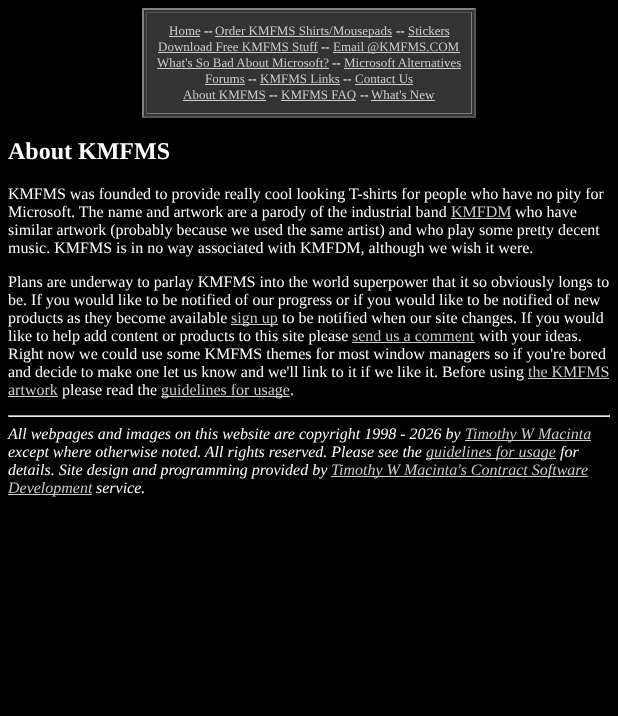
<svg xmlns="http://www.w3.org/2000/svg" width="618" height="716" viewBox="0 0 618 716">
  <rect width="100%" height="100%" fill="rgb(0,0,0)"/>
  <rect x="142" y="8" width="334" height="110" fill="rgb(51,51,51)"/>
  <path d="M142 8H476L474 10H144Z" fill="rgb(128,128,128)"/>
  <path d="M476 8V118L474 116V10Z" fill="rgb(85,85,85)"/>
  <path d="M476 118H142L144 116H474Z" fill="rgb(85,85,85)"/>
  <path d="M142 118V8L144 10V116Z" fill="rgb(128,128,128)"/>
  <rect x="146" y="12" width="326" height="1" fill="rgb(85,85,85)"/>
  <rect x="471" y="12" width="1" height="102" fill="rgb(128,128,128)"/>
  <rect x="146" y="113" width="326" height="1" fill="rgb(128,128,128)"/>
  <rect x="146" y="12" width="1" height="102" fill="rgb(85,85,85)"/>
  <text x="169" y="35" font-family="Liberation Serif" font-size="13" fill="rgb(204,204,204)">Home</text>
  <rect x="169" y="36" width="31" height="1" fill="rgb(204,204,204)"/>
  <text x="204" y="35" font-family="Liberation Serif" font-size="13" fill="rgb(255,255,255)">--</text>
  <rect x="215" y="36" width="177" height="1" fill="rgb(204,204,204)"/>
  <text x="215" y="35" font-family="Liberation Serif" font-size="13" fill="rgb(204,204,204)">Order KMFMS Shirts/Mousepads</text>
  <text x="396" y="35" font-family="Liberation Serif" font-size="13" fill="rgb(255,255,255)">--</text>
  <text x="408" y="35" font-family="Liberation Serif" font-size="13" fill="rgb(204,204,204)">Stickers</text>
  <rect x="408" y="36" width="41" height="1" fill="rgb(204,204,204)"/>
  <text x="158" y="51" font-family="Liberation Serif" font-size="13" fill="rgb(204,204,204)">Download Free KMFMS Stuff</text>
  <rect x="158" y="52" width="160" height="1" fill="rgb(204,204,204)"/>
  <text x="321" y="51" font-family="Liberation Serif" font-size="13" fill="rgb(255,255,255)">--</text>
  <rect x="333" y="52" width="127" height="1" fill="rgb(204,204,204)"/>
  <g font-family="Liberation Serif" font-size="13" fill="rgb(204,204,204)">
    <text x="333" y="51">Email @KMFMS.COM</text>
    <text x="157" y="67">What's So Bad About Microsoft?</text>
  </g>
  <rect x="157" y="68" width="172" height="1" fill="rgb(204,204,204)"/>
  <text x="332" y="67" font-family="Liberation Serif" font-size="13" fill="rgb(255,255,255)">--</text>
  <rect x="344" y="68" width="117" height="1" fill="rgb(204,204,204)"/>
  <g font-family="Liberation Serif" font-size="13" fill="rgb(204,204,204)">
    <text x="344" y="67">Microsoft Alternatives</text>
    <text x="205" y="83">Forums</text>
  </g>
  <rect x="205" y="84" width="40" height="1" fill="rgb(204,204,204)"/>
  <text x="248" y="83" font-family="Liberation Serif" font-size="13" fill="rgb(255,255,255)">--</text>
  <text x="260" y="83" font-family="Liberation Serif" font-size="13" fill="rgb(204,204,204)">KMFMS Links</text>
  <rect x="260" y="84" width="80" height="1" fill="rgb(204,204,204)"/>
  <text x="343" y="83" font-family="Liberation Serif" font-size="13" fill="rgb(255,255,255)">--</text>
  <text x="355" y="83" font-family="Liberation Serif" font-size="13" fill="rgb(204,204,204)">Contact Us</text>
  <rect x="355" y="84" width="58" height="1" fill="rgb(204,204,204)"/>
  <text x="183" y="99" font-family="Liberation Serif" font-size="13" fill="rgb(204,204,204)">About KMFMS</text>
  <rect x="183" y="100" width="83" height="1" fill="rgb(204,204,204)"/>
  <text x="269" y="99" font-family="Liberation Serif" font-size="13" fill="rgb(255,255,255)">--</text>
  <rect x="281" y="100" width="75" height="1" fill="rgb(204,204,204)"/>
  <text x="281" y="99" font-family="Liberation Serif" font-size="13" fill="rgb(204,204,204)">KMFMS FAQ</text>
  <text x="360" y="99" font-family="Liberation Serif" font-size="13" fill="rgb(255,255,255)">--</text>
  <text x="371" y="99" font-family="Liberation Serif" font-size="13" fill="rgb(204,204,204)">What's New</text>
  <rect x="371" y="100" width="64" height="1" fill="rgb(204,204,204)"/>
  <text x="8" y="159" font-family="Liberation Serif" font-size="24" font-weight="bold" fill="rgb(255,255,255)">About KMFMS</text>
  <g font-family="Liberation Serif" font-size="16" fill="rgb(255,255,255)">
    <text>
      <tspan x="8" y="199">KMFMS was founded to provide really cool looking T-shirts for people who have no pity for</tspan>
      <tspan x="8" y="217">Microsoft. The name and artwork are a parody of the industrial band</tspan>
    </text>
  </g>
  <text x="451" y="217" font-family="Liberation Serif" font-size="16" fill="rgb(204,204,204)">KMFDM</text>
  <rect x="451" y="218" width="60" height="1" fill="rgb(204,204,204)"/>
  <g font-family="Liberation Serif" font-size="16" fill="rgb(255,255,255)">
    <text x="515" y="217">who have</text>
    <text>
      <tspan x="8" y="235">similar artwork (probably because we used the same artist) and who play some pretty decent</tspan>
      <tspan x="8" y="253">music. KMFMS is in no way associated with KMFDM, although we wish it were.</tspan>
    </text>
    <text>
      <tspan x="8" y="287">Plans are underway to parlay KMFMS into the world superpower that it so obviously longs to</tspan>
      <tspan x="8" y="305">be. If you would like to be notified of our progress or if you would like to be notified of new</tspan>
      <tspan x="8" y="323">products as they become available</tspan>
    </text>
  </g>
  <rect x="231" y="324" width="47" height="1" fill="rgb(204,204,204)"/>
  <text x="231" y="323" font-family="Liberation Serif" font-size="16" fill="rgb(204,204,204)">sign up</text>
  <g font-family="Liberation Serif" font-size="16" fill="rgb(255,255,255)">
    <text x="282" y="323">to be notified when our site changes. If you would</text>
    <text x="8" y="341">like to help add content or products to this site please</text>
  </g>
  <text x="352" y="341" font-family="Liberation Serif" font-size="16" fill="rgb(204,204,204)">send us a comment</text>
  <rect x="352" y="342" width="123" height="1" fill="rgb(204,204,204)"/>
  <g font-family="Liberation Serif" font-size="16" fill="rgb(255,255,255)">
    <text x="479" y="341">with your ideas.</text>
    <text>
      <tspan x="8" y="359">Right now we could use some KMFMS themes for most window managers so if you're bored</tspan>
      <tspan x="8" y="377">and decide to make one let us know and we'll link to it if we like it. Before using</tspan>
    </text>
  </g>
  <text x="528" y="377" font-family="Liberation Serif" font-size="16" fill="rgb(204,204,204)">the KMFMS</text>
  <rect x="528" y="378" width="81" height="1" fill="rgb(204,204,204)"/>
  <text x="8" y="395" font-family="Liberation Serif" font-size="16" fill="rgb(204,204,204)">artwork</text>
  <rect x="8" y="396" width="50" height="1" fill="rgb(204,204,204)"/>
  <text x="62" y="395" font-family="Liberation Serif" font-size="16" fill="rgb(255,255,255)">please read the</text>
  <rect x="161" y="396" width="129" height="1" fill="rgb(204,204,204)"/>
  <text x="161" y="395" font-family="Liberation Serif" font-size="16" fill="rgb(204,204,204)">guidelines for usage</text>
  <text x="290" y="395" font-family="Liberation Serif" font-size="16" fill="rgb(255,255,255)">.</text>
  <rect x="8" y="415" width="602" height="1" fill="rgb(159,159,159)"/>
  <rect x="609" y="415" width="1" height="2" fill="rgb(238,238,238)"/>
  <rect x="8" y="416" width="602" height="1" fill="rgb(238,238,238)"/>
  <rect x="8" y="415" width="1" height="2" fill="rgb(159,159,159)"/>
  <text x="8" y="439" font-family="Liberation Serif" font-size="16" font-style="italic" fill="rgb(255,255,255)">All webpages and images on this website are copyright 1998 - 2026 by</text>
  <rect x="465" y="440" width="126" height="1" fill="rgb(204,204,204)"/>
  <text x="465" y="439" font-family="Liberation Serif" font-size="16" font-style="italic" fill="rgb(204,204,204)">Timothy W Macinta</text>
  <text x="8" y="457" font-family="Liberation Serif" font-size="16" font-style="italic" fill="rgb(255,255,255)">except where otherwise noted. All rights reserved. Please see the</text>
  <rect x="426" y="458" width="130" height="1" fill="rgb(204,204,204)"/>
  <text x="426" y="457" font-family="Liberation Serif" font-size="16" font-style="italic" fill="rgb(204,204,204)">guidelines for usage</text>
  <g font-family="Liberation Serif" font-size="16" font-style="italic" fill="rgb(255,255,255)">
    <text x="560" y="457">for</text>
    <text x="8" y="475">details. Site design and programming provided by</text>
  </g>
  <rect x="331" y="476" width="257" height="1" fill="rgb(204,204,204)"/>
  <text x="331" y="475" font-family="Liberation Serif" font-size="16" font-style="italic" fill="rgb(204,204,204)">Timothy W Macinta's Contract Software</text>
  <rect x="8" y="494" width="84" height="1" fill="rgb(204,204,204)"/>
  <text x="8" y="493" font-family="Liberation Serif" font-size="16" font-style="italic" fill="rgb(204,204,204)">Development</text>
  <text x="96" y="493" font-family="Liberation Serif" font-size="16" font-style="italic" fill="rgb(255,255,255)">service.</text>
</svg>
